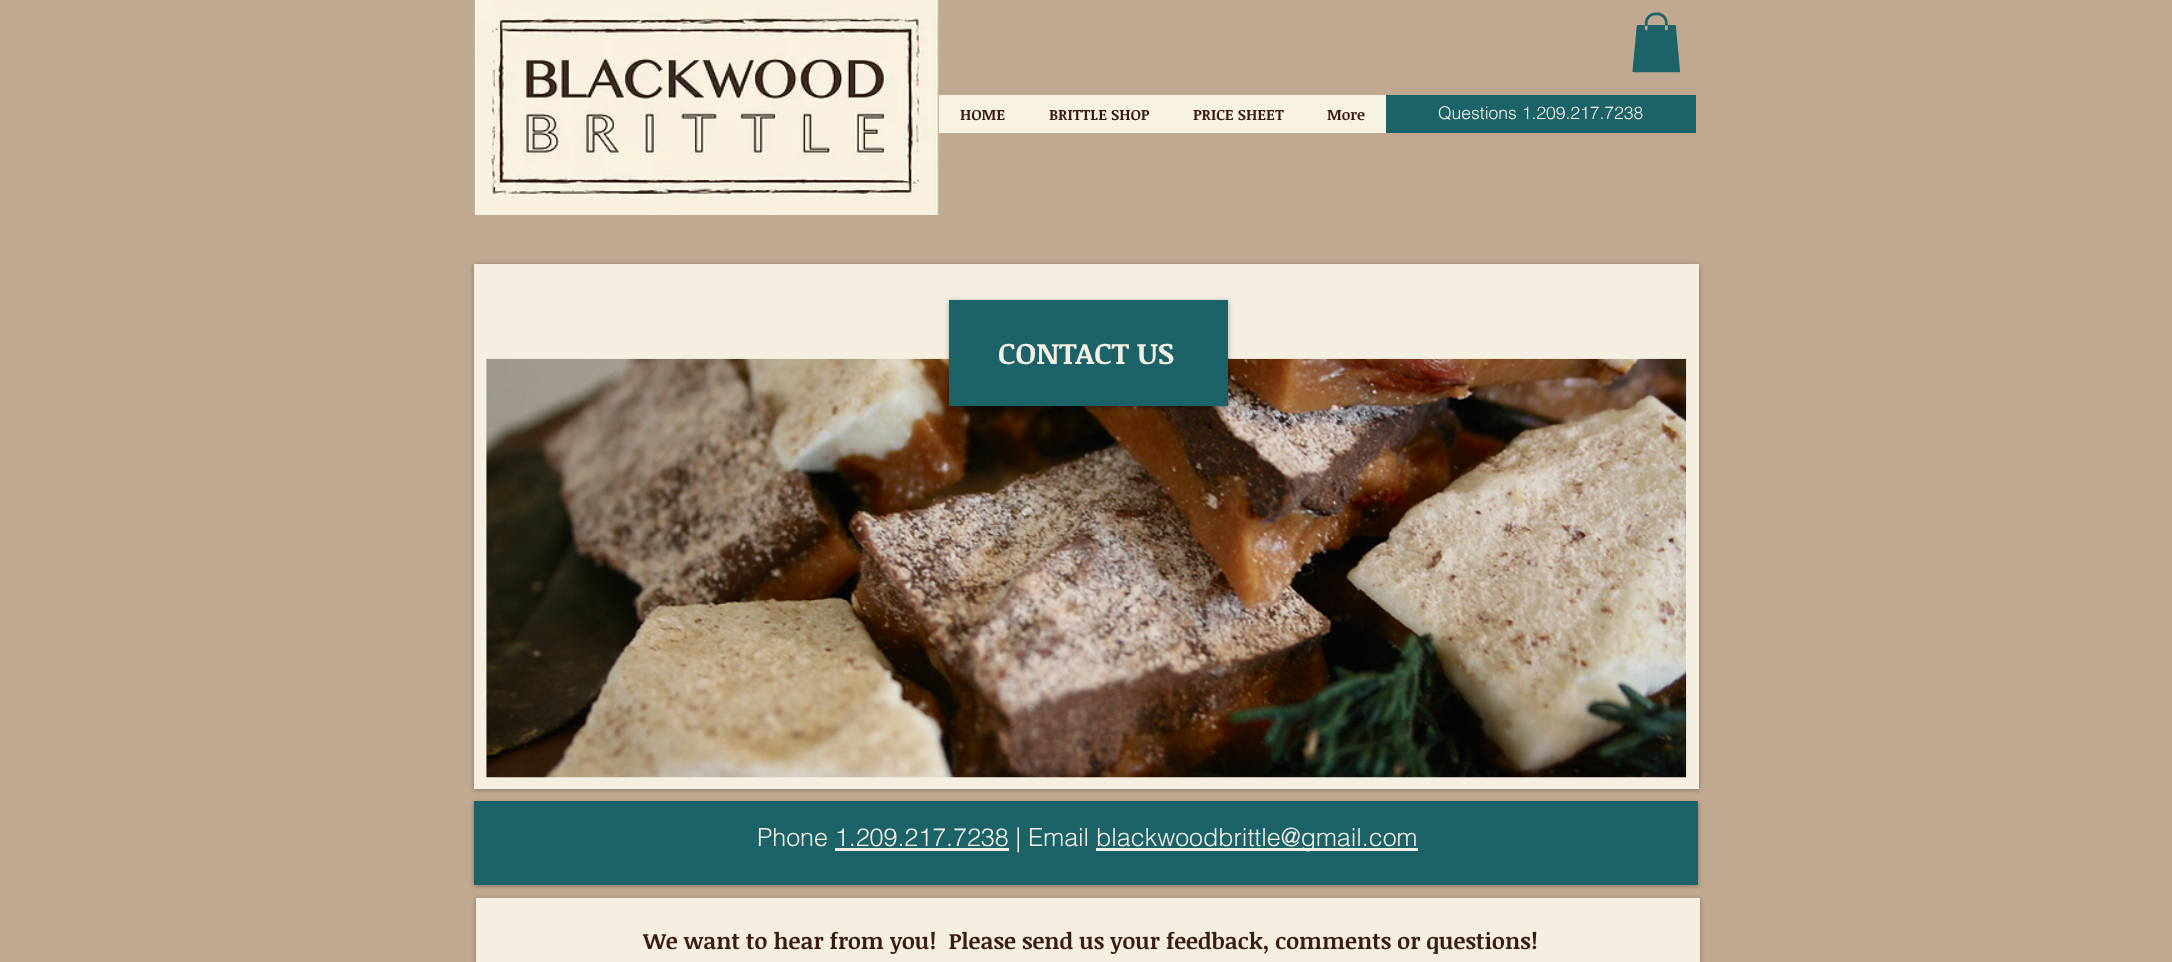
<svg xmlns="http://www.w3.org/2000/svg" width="2172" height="962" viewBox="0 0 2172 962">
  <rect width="100%" height="100%" fill="rgb(192,168,145)"/>
  <image x="474" y="0" width="465" height="215" href="pic1.png"/>
  <image x="1632" y="12" width="49" height="61" href="pic2.png"/>
  <rect x="939" y="95" width="447" height="38" fill="rgb(247,242,226)"/>
  <g font-family="Noticia Text" font-size="15" font-weight="bold" fill="rgb(58,28,19)">
    <text x="960" y="120">HOME</text>
    <text x="1049" y="120">BRITTLE SHOP</text>
    <text x="1193" y="120">PRICE SHEET</text>
    <text x="1327" y="120">More</text>
  </g>
  <rect x="1386" y="95" width="310" height="38" fill="rgb(28,99,105)"/>
  <text x="1438" y="119" font-family="helvetica" font-size="17.5" font-weight="300" fill="rgb(244,239,225)">Questions 1.209.217.7238</text>
  <rect x="474" y="265" width="1225" height="525" fill="rgba(0,0,0,0.3)" filter="blur(2.5px)"/>
  <rect x="474" y="264" width="1225" height="525" fill="rgb(244,239,225)"/>
  <image x="486" y="358" width="1201" height="420" href="pic3.png"/>
  <rect x="949" y="301" width="279" height="107" fill="rgba(0,0,0,0.3)" filter="blur(2.5px)"/>
  <rect x="949" y="300" width="279" height="106" fill="rgb(28,99,105)"/>
  <text x="998" y="364" font-family="Noticia Text" font-size="30" font-weight="bold" fill="rgb(244,239,225)">CONTACT US</text>
  <rect x="474" y="803" width="1224" height="83" fill="rgba(0,0,0,0.3)" filter="blur(2.5px)"/>
  <rect x="474" y="801" width="1224" height="84" fill="rgb(28,99,105)"/>
  <text x="757" y="846" font-family="helvetica" font-size="25" font-weight="300" fill="rgb(244,239,225)">Phone 1.209.217.7238 | Email</text>
  <rect x="835" y="848" width="174" height="3" fill="rgb(244,239,225)"/>
  <rect x="1096" y="848" width="322" height="3" fill="rgb(244,239,225)"/>
  <text x="1096" y="846" font-family="helvetica" font-size="25" font-weight="300" fill="rgb(244,239,225)">blackwoodbrittle@gmail.com</text>
  <rect x="476" y="899" width="1224" height="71" fill="rgba(0,0,0,0.3)" filter="blur(2.5px)"/>
  <rect x="476" y="898" width="1224" height="64" fill="rgb(244,239,225)"/>
  <text x="643" y="949" font-family="Noticia Text" font-size="22.5" font-weight="bold" fill="rgb(58,28,19)" xml:space="preserve">We want to hear from you!  Please send us your feedback, comments or questions!</text>
</svg>
